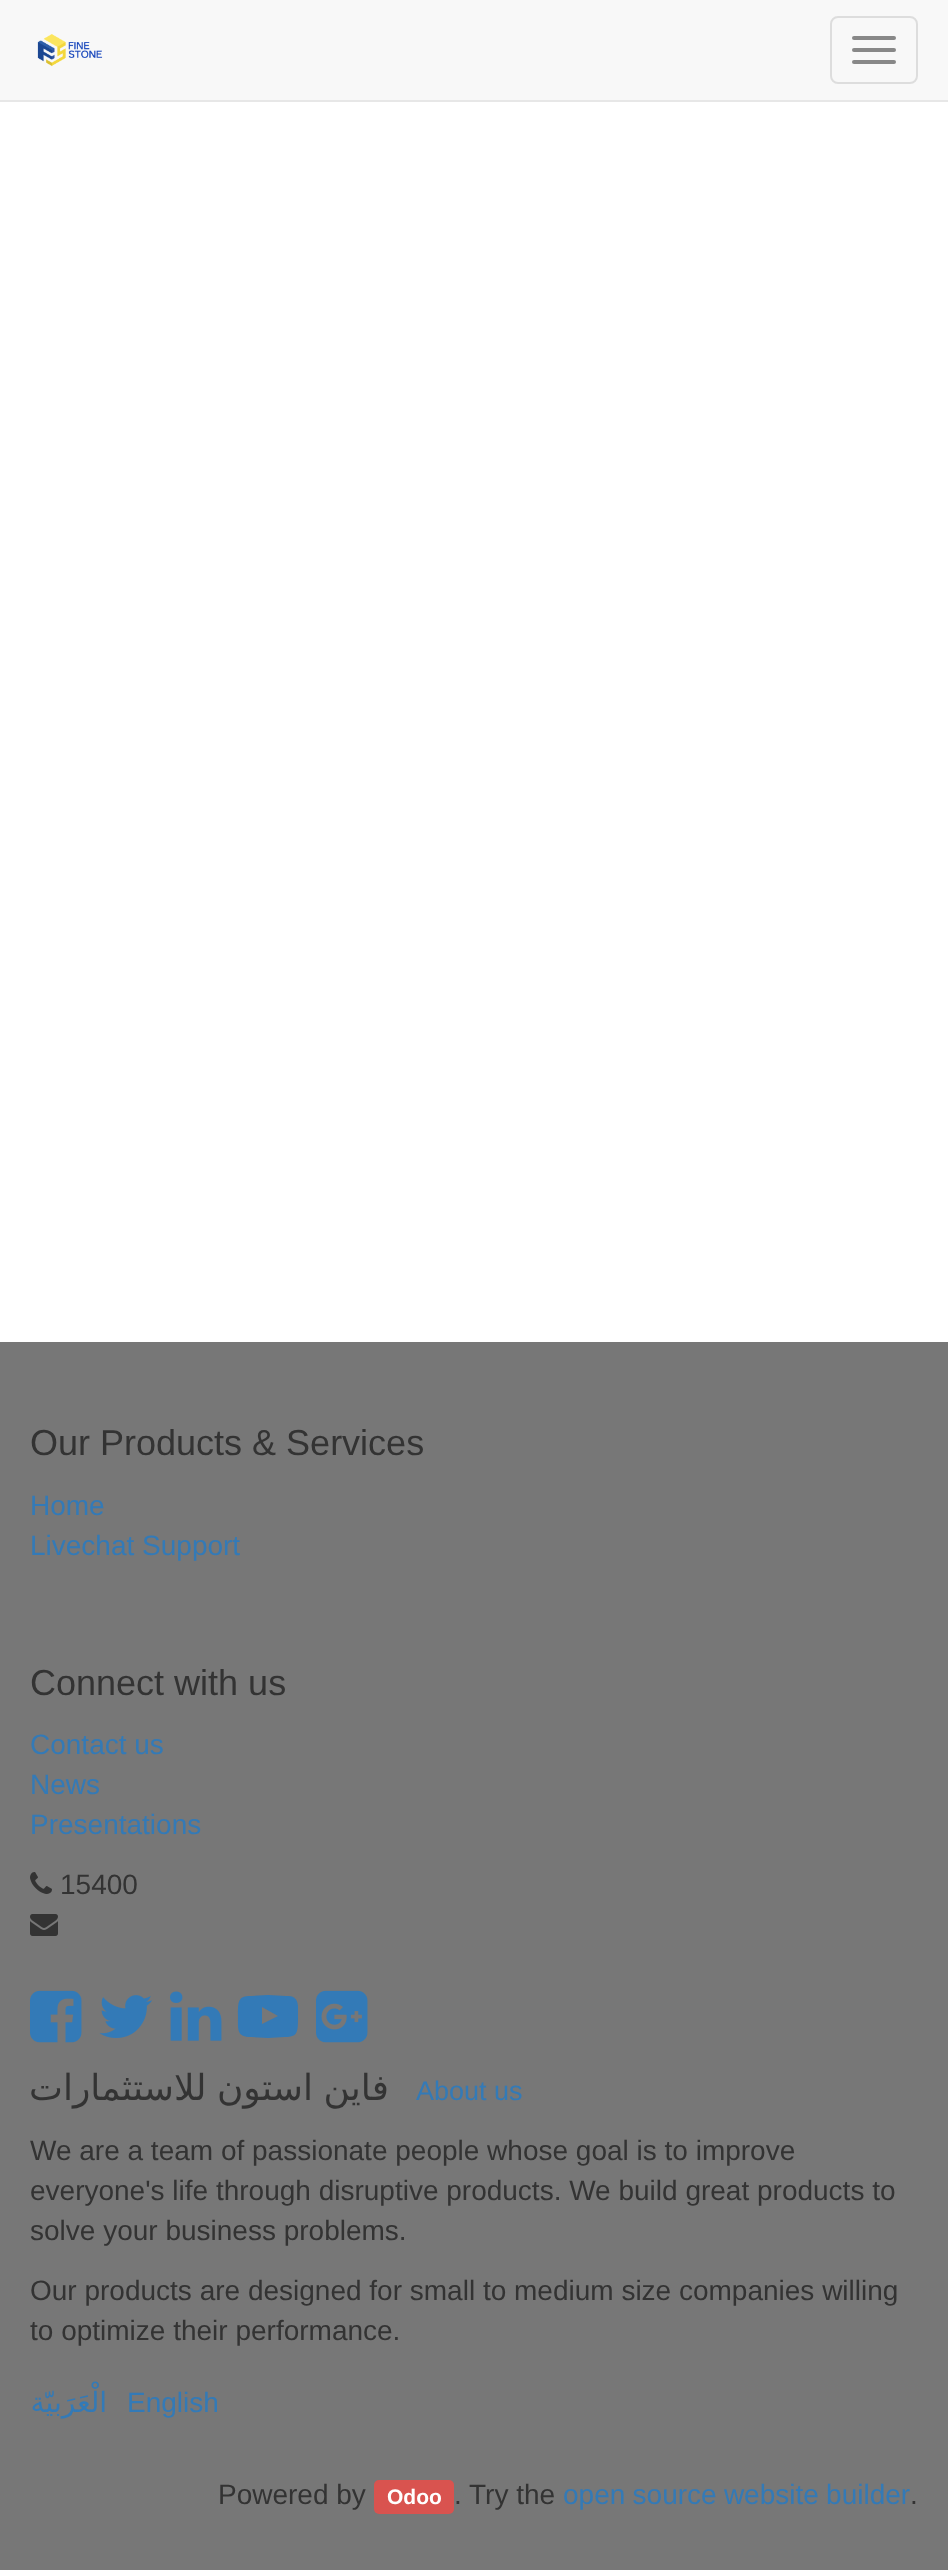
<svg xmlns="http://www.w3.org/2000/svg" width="948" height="2570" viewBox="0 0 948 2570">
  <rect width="100%" height="100%" fill="rgb(255,255,255)"/>
  <rect x="0" y="0" width="948" height="100" fill="rgb(248,248,248)"/>
  <rect x="0" y="100" width="948" height="2" fill="rgb(231,231,231)"/>
  <image x="37" y="34" width="66" height="33" href="pic1.png"/>
  <rect x="831" y="17" width="86" height="66" rx="7" fill="none" stroke="rgb(221,221,221)" stroke-width="2"/>
  <rect x="852" y="36" width="44" height="4" rx="2" fill="rgb(136,136,136)"/>
  <rect x="852" y="48" width="44" height="4" rx="2" fill="rgb(136,136,136)"/>
  <rect x="852" y="60" width="44" height="4" rx="2" fill="rgb(136,136,136)"/>
  <rect x="0" y="1342" width="948" height="1228" fill="rgb(119,119,119)"/>
  <text x="30" y="1455" font-family="Liberation Sans" font-size="36" fill="rgb(51,51,51)">Our Products &amp; Services</text>
  <g font-family="Liberation Sans" font-size="28" fill="rgb(51,122,183)">
    <text>
      <tspan x="30" y="1515">Home</tspan>
      <tspan x="30" y="1555">Livechat Support</tspan>
    </text>
  </g>
  <text x="30" y="1695" font-family="Liberation Sans" font-size="36" fill="rgb(51,51,51)">Connect with us</text>
  <g font-family="Liberation Sans" font-size="28" fill="rgb(51,122,183)">
    <text>
      <tspan x="30" y="1754">Contact us</tspan>
      <tspan x="30" y="1794">News</tspan>
      <tspan x="30" y="1834">Presentations</tspan>
    </text>
  </g>
  <image x="30" y="1872" width="22" height="22" href="pic2.png"/>
  <text x="60" y="1894" font-family="Liberation Sans" font-size="28" fill="rgb(51,51,51)">15400</text>
  <image x="30" y="1914" width="28" height="22" href="pic3.png"/>
  <image x="30" y="1990" width="52" height="53" href="pic4.png"/>
  <image x="99" y="1995" width="53" height="43" href="pic5.png"/>
  <image x="170" y="1991" width="52" height="50" href="pic6.png"/>
  <path d="M262 2024L278 2016L262 2007ZM268 1995L286 1996C293 1996 297 1997 298 2006V2017C298 2032 298 2037 285 2037L268 2038L251 2037C236 2037 238 2029 238 2016C238 2001 238 1996 251 1996Z" fill="rgb(51,122,183)"/>
  <image x="316" y="1990" width="52" height="53" href="pic7.png"/>
  <text x="389" y="2100" word-spacing="-1" font-family="DejaVu Sans" font-size="36" direction="rtl" fill="rgb(51,51,51)">فاين استون للاستثمارات</text>
  <text x="416" y="2100" font-family="Liberation Sans" font-size="27" fill="rgb(51,122,183)">About us</text>
  <g font-family="Liberation Sans" font-size="28" fill="rgb(51,51,51)">
    <text>
      <tspan x="30" y="2160">We are a team of passionate people whose goal is to improve</tspan>
      <tspan x="30" y="2200">everyone's life through disruptive products. We build great products to</tspan>
      <tspan x="30" y="2240">solve your business problems.</tspan>
    </text>
    <text>
      <tspan x="30" y="2300">Our products are designed for small to medium size companies willing</tspan>
      <tspan x="30" y="2340">to optimize their performance.</tspan>
    </text>
  </g>
  <text x="107" y="2412" font-family="DejaVu Sans" font-size="28" direction="rtl" fill="rgb(51,122,183)">الْعَرَبيّة</text>
  <text x="127" y="2412" font-family="Liberation Sans" font-size="28" fill="rgb(51,122,183)">English</text>
  <text x="218" y="2504" font-family="Liberation Sans" font-size="28" fill="rgb(51,51,51)">Powered by</text>
  <rect x="374" y="2480" width="80" height="34" rx="5" fill="rgb(217,83,79)"/>
  <text x="387" y="2504" font-family="Liberation Sans" font-size="21" font-weight="bold" fill="rgb(255,255,255)">Odoo</text>
  <g font-family="Liberation Sans" font-size="28" fill="rgb(51,51,51)">
    <text x="454" y="2504">.</text>
    <text x="469" y="2504">Try the</text>
  </g>
  <text x="563" y="2504" word-spacing="-0.5" font-family="Liberation Sans" font-size="28" fill="rgb(51,122,183)">open source website builder</text>
  <text x="910" y="2504" font-family="Liberation Sans" font-size="28" fill="rgb(51,51,51)">.</text>
</svg>
